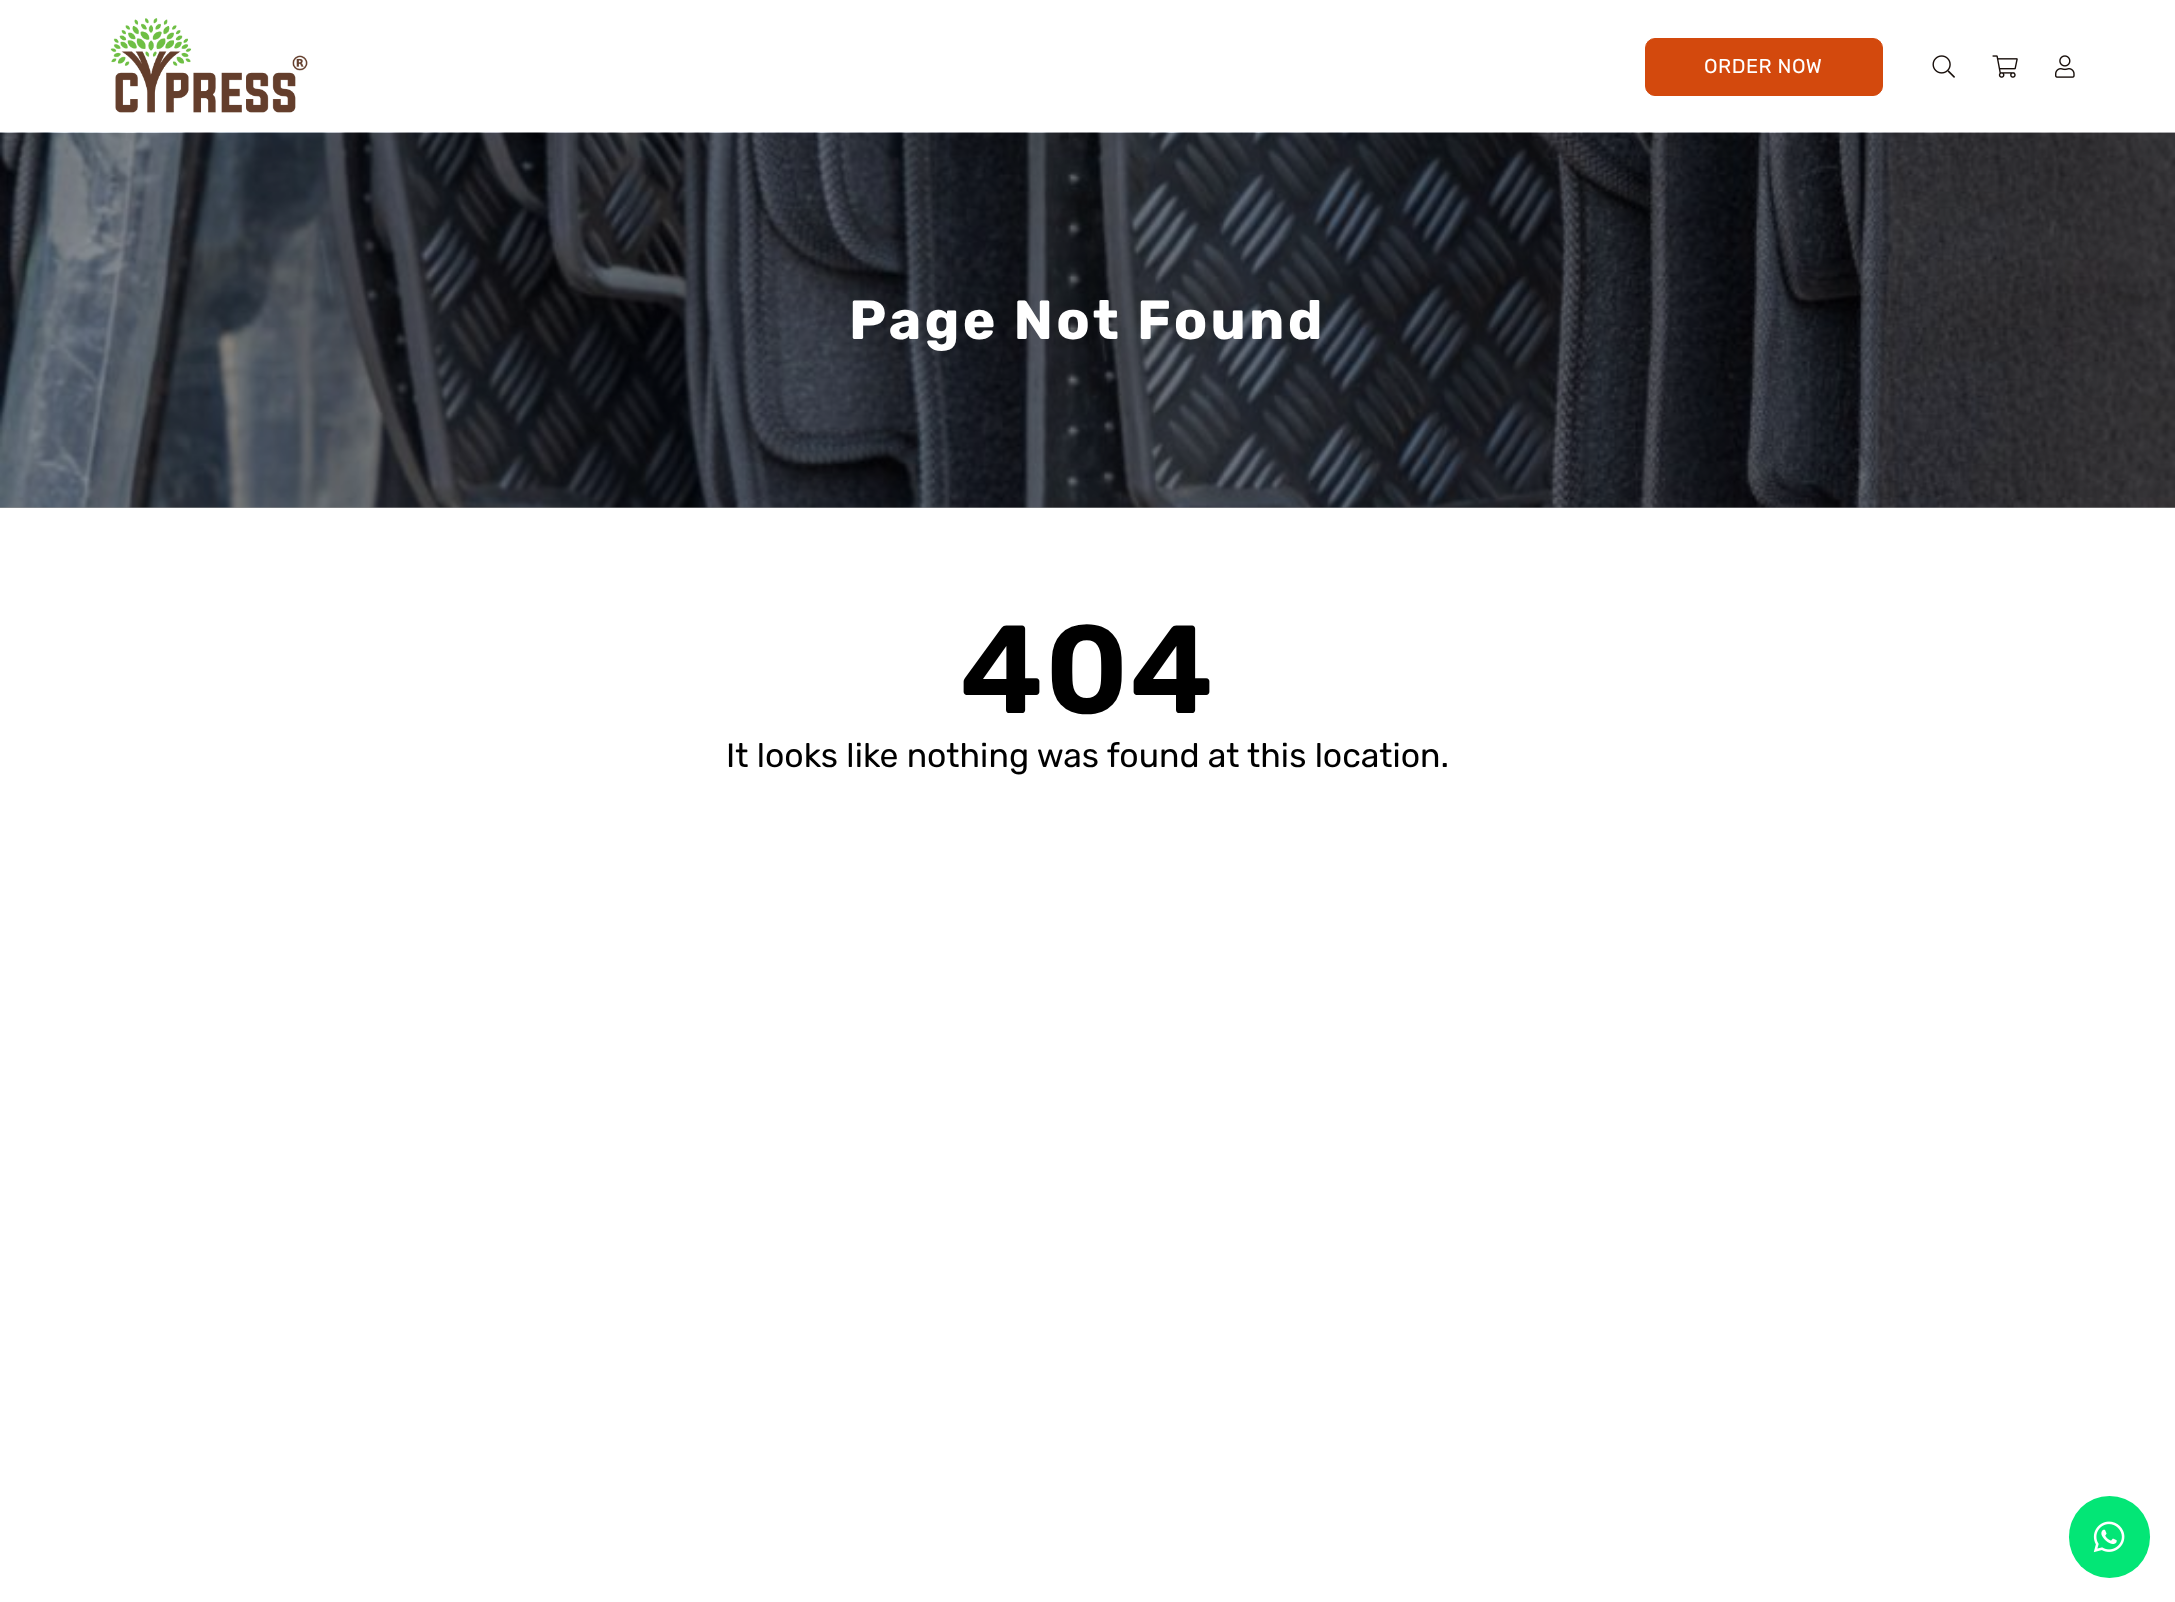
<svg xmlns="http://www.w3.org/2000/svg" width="2175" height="1602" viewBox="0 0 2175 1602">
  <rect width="100%" height="100%" fill="rgb(255,255,255)"/>
  <rect x="0" y="507" width="2175" height="1" fill="rgb(153,153,153)"/>
  <image x="110" y="18" width="198" height="95" href="pic1.png"/>
  <rect x="1645.5" y="38.5" width="237" height="57" rx="9.5" fill="rgb(211,73,13)" stroke="rgb(211,73,13)"/>
  <text x="1704" y="73" font-family="Rubik" font-size="20" letter-spacing="0.5" fill="rgb(255,255,255)">ORDER NOW</text>
  <image x="1932" y="55" width="23" height="23" href="pic2.png"/>
  <image x="1992" y="55" width="26" height="23" href="pic3.png"/>
  <image x="2055" y="55" width="20" height="23" href="pic4.png"/>
  <image x="0" y="132" width="2175" height="376" href="pic5.png"/>
  <text x="849" y="339" font-family="Rubik" font-size="55" font-weight="bold" letter-spacing="3.25" fill="rgb(255,255,255)">Page Not Found</text>
  <text x="960" y="713" font-family="Rubik" font-size="125" font-weight="600" letter-spacing="1.5" fill="rgb(0,0,0)">404</text>
  <text x="726" y="767" font-family="Rubik" font-size="33.75" fill="rgb(0,0,0)">It looks like nothing was found at this location.</text>
  <rect x="2069" y="1496" width="81" height="82" rx="40.5" fill="rgb(3,230,118)"/>
  <image x="2093" y="1521" width="32" height="32" href="pic6.png"/>
</svg>
